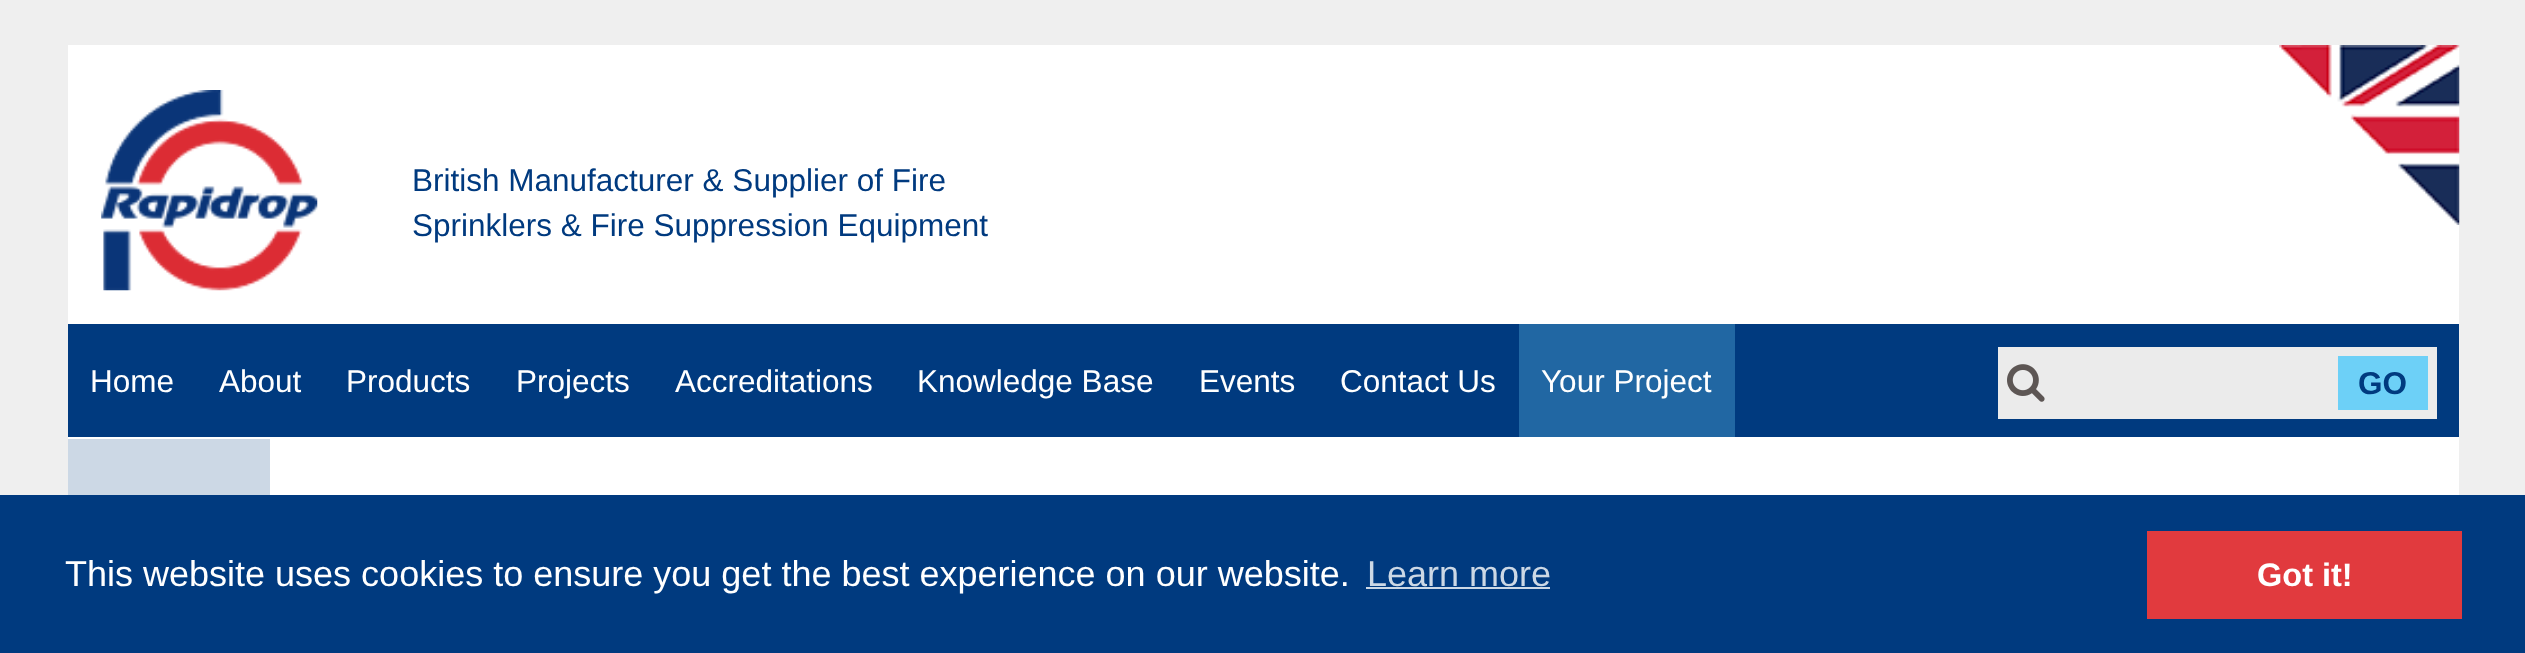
<svg xmlns="http://www.w3.org/2000/svg" width="2525" height="653" viewBox="0 0 2525 653">
  <rect width="100%" height="100%" fill="rgb(239,239,239)"/>
  <rect x="68" y="437" width="2391" height="2" fill="rgb(255,255,255)"/>
  <rect x="68" y="45" width="2391" height="279" fill="rgb(255,255,255)"/>
  <image x="2279" y="45" width="181" height="180" href="pic1.png"/>
  <image x="101" y="90" width="217" height="201" href="pic2.png"/>
  <g font-family="Liberation Sans" font-size="31.5" fill="rgb(0,58,127)">
    <text>
      <tspan x="412" y="191">British Manufacturer &amp; Supplier of Fire</tspan>
      <tspan x="412" y="236">Sprinklers &amp; Fire Suppression Equipment</tspan>
    </text>
  </g>
  <rect x="68" y="324" width="2391" height="113" fill="rgb(0,58,127)"/>
  <g font-family="Liberation Sans" font-size="31.5" fill="rgb(255,255,255)">
    <text x="90" y="392">Home</text>
    <text x="219" y="392">About</text>
    <text x="346" y="392">Products</text>
    <text x="516" y="392">Projects</text>
    <text x="675" y="392">Accreditations</text>
    <text x="917" y="392">Knowledge Base</text>
    <text x="1199" y="392">Events</text>
    <text x="1340" y="392">Contact Us</text>
  </g>
  <rect x="1519" y="324" width="216" height="113" fill="rgb(33,103,163)"/>
  <text x="1541" y="392" font-family="Liberation Sans" font-size="31.5" fill="rgb(255,255,255)">Your Project</text>
  <rect x="1998" y="347" width="439" height="72" fill="rgb(235,235,235)"/>
  <image x="2007" y="364" width="38" height="38" href="pic3.png"/>
  <rect x="2338" y="356" width="90" height="54" fill="rgb(109,208,247)"/>
  <text x="2358" y="394" font-family="Liberation Sans" font-size="31.5" font-weight="bold" fill="rgb(0,58,127)">GO</text>
  <rect x="68" y="439" width="202" height="56" fill="rgb(204,216,229)"/>
  <rect x="270" y="439" width="2189" height="56" fill="rgb(255,255,255)"/>
  <rect x="0" y="495" width="2525" height="158" fill="rgb(0,58,127)"/>
  <text x="65" y="586" font-family="Liberation Sans" font-size="36" fill="rgb(255,255,255)">This website uses cookies to ensure you get the best experience on our website.</text>
  <text x="1367" y="586" font-family="Liberation Sans" font-size="36" fill="rgb(204,216,229)">Learn more</text>
  <rect x="1366" y="587" width="184" height="2" fill="rgb(204,216,229)"/>
  <rect x="2147" y="531" width="315" height="88" fill="rgb(225,58,62)"/>
  <text x="2257" y="586" font-family="Liberation Sans" font-size="32.5" font-weight="bold" fill="rgb(255,255,255)">Got it!</text>
</svg>
